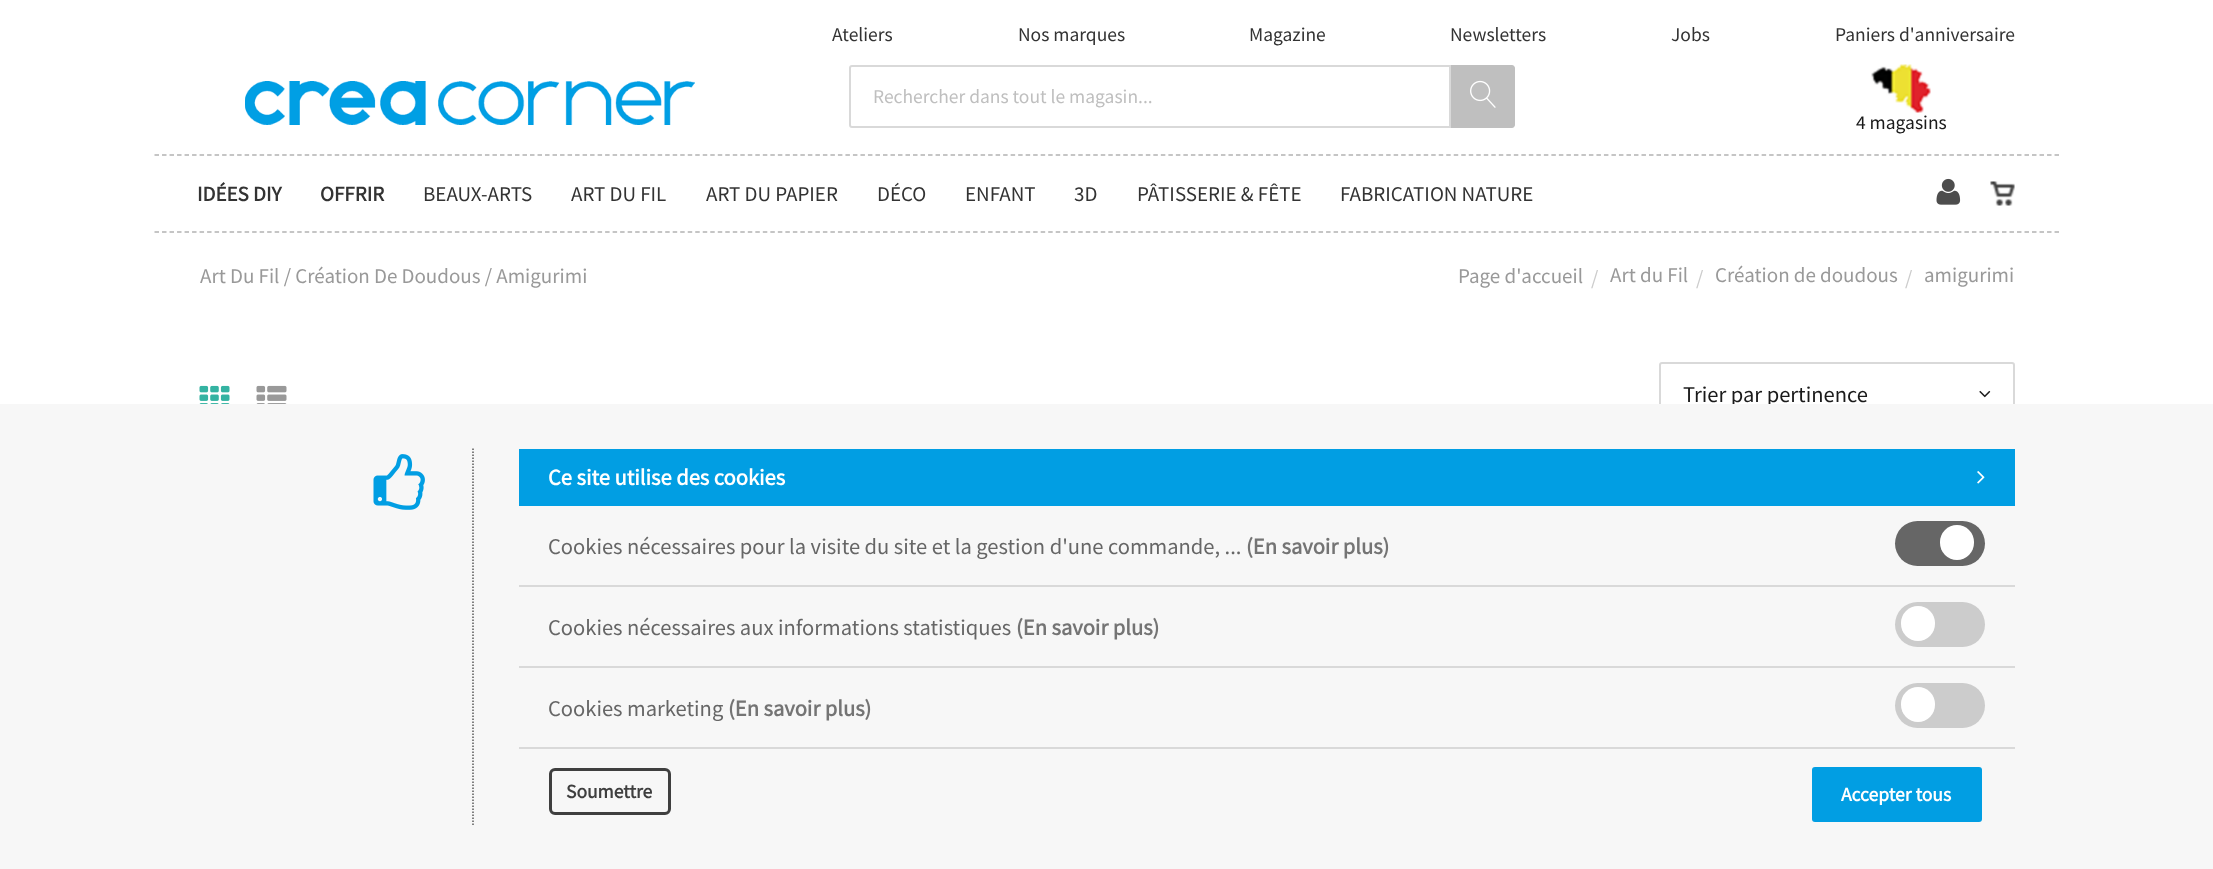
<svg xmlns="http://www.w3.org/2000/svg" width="2213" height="869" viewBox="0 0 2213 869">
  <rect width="100%" height="100%" fill="rgb(255,255,255)"/>
  <g font-family="Source Sans Pro" font-size="19.5" fill="rgb(51,51,51)">
    <text x="832" y="41">Ateliers</text>
    <text x="1018" y="41">Nos marques</text>
    <text x="1249" y="41">Magazine</text>
    <text x="1450" y="41">Newsletters</text>
    <text x="1671" y="41">Jobs</text>
    <text x="1835" y="41">Paniers d'anniversaire</text>
  </g>
  <image x="245" y="81" width="450" height="44" href="pic1.png"/>
  <path d="M1449 65H1512C1513.5 65 1515 66.5 1515 68V125C1515 126.5 1513.5 128 1512 128H1449Z" fill="rgb(191,191,191)"/>
  <path d="M852 66H1450V127H852C851 127 850 126 850 125V68C850 67 851 66 852 66Z" fill="none" stroke="rgb(217,217,217)" stroke-width="2"/>
  <text x="873" y="103" font-family="Source Sans Pro" font-size="19.5" fill="rgb(191,191,191)">Rechercher dans tout le magasin...</text>
  <image x="1470" y="80" width="26" height="28" href="pic2.png"/>
  <image x="1871" y="64" width="60" height="49" href="pic3.png"/>
  <text x="1856" y="129" font-family="Source Sans Pro" font-size="19.5" fill="rgb(26,26,26)">4 magasins</text>
  <path d="M154.5 155H2059.5" fill="none" stroke="rgb(179,179,179)" stroke-width="1.5" stroke-dasharray="4.5 3.01"/>
  <path d="M154.5 232H2059.5" fill="none" stroke="rgb(179,179,179)" stroke-width="1.5" stroke-dasharray="4.5 3.01"/>
  <g font-family="Source Sans Pro" font-size="21" font-weight="bold" fill="rgb(51,51,51)">
    <text x="197" y="201">IDÉES DIY</text>
    <text x="320" y="201">OFFRIR</text>
  </g>
  <g font-family="Source Sans Pro" font-size="21" fill="rgb(51,51,51)">
    <text x="423" y="201">BEAUX-ARTS</text>
    <text x="571" y="201">ART DU FIL</text>
    <text x="706" y="201">ART DU PAPIER</text>
    <text x="877" y="201">DÉCO</text>
    <text x="965" y="201">ENFANT</text>
    <text x="1074" y="201">3D</text>
    <text x="1137" y="201">PÂTISSERIE &amp; FÊTE</text>
    <text x="1340" y="201">FABRICATION NATURE</text>
  </g>
  <image x="1936" y="178" width="25" height="27" href="pic4.png"/>
  <image x="1990" y="181" width="25" height="25" href="pic5.png"/>
  <g font-family="Source Sans Pro" font-size="21" fill="rgb(153,153,153)">
    <text x="200" y="283">Art Du Fil / Création De Doudous / Amigurimi</text>
    <text x="1458" y="283">Page d'accueil</text>
  </g>
  <text x="1591" y="285" font-family="Source Sans Pro" font-size="21" fill="rgb(204,204,204)">/</text>
  <text x="1610" y="282" font-family="Source Sans Pro" font-size="21" fill="rgb(153,153,153)">Art du Fil</text>
  <text x="1696" y="285" font-family="Source Sans Pro" font-size="21" fill="rgb(204,204,204)">/</text>
  <text x="1715" y="282" font-family="Source Sans Pro" font-size="21" fill="rgb(153,153,153)">Création de doudous</text>
  <text x="1905" y="285" font-family="Source Sans Pro" font-size="21" fill="rgb(204,204,204)">/</text>
  <text x="1924" y="282" font-family="Source Sans Pro" font-size="21" fill="rgb(153,153,153)">amigurimi</text>
  <image x="199" y="385" width="31" height="19" href="pic6.png"/>
  <image x="256" y="385" width="31" height="19" href="pic7.png"/>
  <rect x="1660" y="363" width="354" height="64" rx="2" fill="none" stroke="rgb(217,217,217)" stroke-width="2"/>
  <text x="1683" y="402" font-family="Source Sans Pro" font-size="22.5" fill="rgb(26,26,26)">Trier par pertinence</text>
  <image x="1979" y="390" width="12" height="8" href="pic8.png"/>
  <rect x="0" y="404" width="2213" height="465" fill="rgb(247,247,247)"/>
  <image x="373" y="454" width="52" height="56" href="pic9.png"/>
  <path d="M473 448.5V825" fill="none" stroke="rgb(89,89,89)" stroke-width="1.5" stroke-dasharray="1.5 1.5"/>
  <rect x="519" y="449" width="1496" height="57" fill="rgb(1,158,227)"/>
  <text x="548" y="485" font-family="Source Sans Pro" font-size="22.5" font-weight="bold" fill="rgb(255,255,255)">Ce site utilise des cookies</text>
  <image x="1977" y="471" width="8" height="13" href="pic10.png"/>
  <rect x="519" y="585" width="1496" height="2" fill="rgb(217,217,217)"/>
  <text x="548" y="554" font-family="Source Sans Pro" font-size="22.5" fill="rgb(102,102,102)">Cookies nécessaires pour la visite du site et la gestion d'une commande, ...</text>
  <text x="1246" y="554" font-family="Source Sans Pro" font-size="22.5" font-weight="bold" fill="rgb(116,116,116)">(En savoir plus)</text>
  <rect x="1895" y="521" width="90" height="45" rx="22.5" fill="rgb(102,102,102)"/>
  <rect x="1940" y="525" width="34" height="35" rx="17" fill="rgb(255,255,255)"/>
  <rect x="519" y="666" width="1496" height="2" fill="rgb(217,217,217)"/>
  <text x="548" y="635" font-family="Source Sans Pro" font-size="22.5" fill="rgb(102,102,102)">Cookies nécessaires aux informations statistiques</text>
  <text x="1016" y="635" font-family="Source Sans Pro" font-size="22.5" font-weight="bold" fill="rgb(116,116,116)">(En savoir plus)</text>
  <rect x="1895" y="602" width="90" height="45" rx="22.5" fill="rgb(204,204,204)"/>
  <rect x="1901" y="606" width="34" height="35" rx="17" fill="rgb(255,255,255)"/>
  <rect x="519" y="747" width="1496" height="2" fill="rgb(217,217,217)"/>
  <text x="548" y="716" font-family="Source Sans Pro" font-size="22.5" fill="rgb(102,102,102)">Cookies marketing</text>
  <text x="728" y="716" font-family="Source Sans Pro" font-size="22.5" font-weight="bold" fill="rgb(116,116,116)">(En savoir plus)</text>
  <rect x="1895" y="683" width="90" height="45" rx="22.5" fill="rgb(204,204,204)"/>
  <rect x="1901" y="687" width="34" height="35" rx="17" fill="rgb(255,255,255)"/>
  <rect x="550.5" y="769.5" width="119" height="44" rx="4.5" fill="none" stroke="rgb(63,63,63)" stroke-width="3"/>
  <text x="566" y="798" font-family="Source Sans Pro" font-size="19.5" font-weight="bold" fill="rgb(63,63,63)">Soumettre</text>
  <rect x="1812" y="767" width="170" height="55" rx="3" fill="rgb(1,158,227)"/>
  <text x="1841" y="801" font-family="Source Sans Pro" font-size="19.5" font-weight="bold" fill="rgb(255,255,255)">Accepter tous</text>
</svg>
